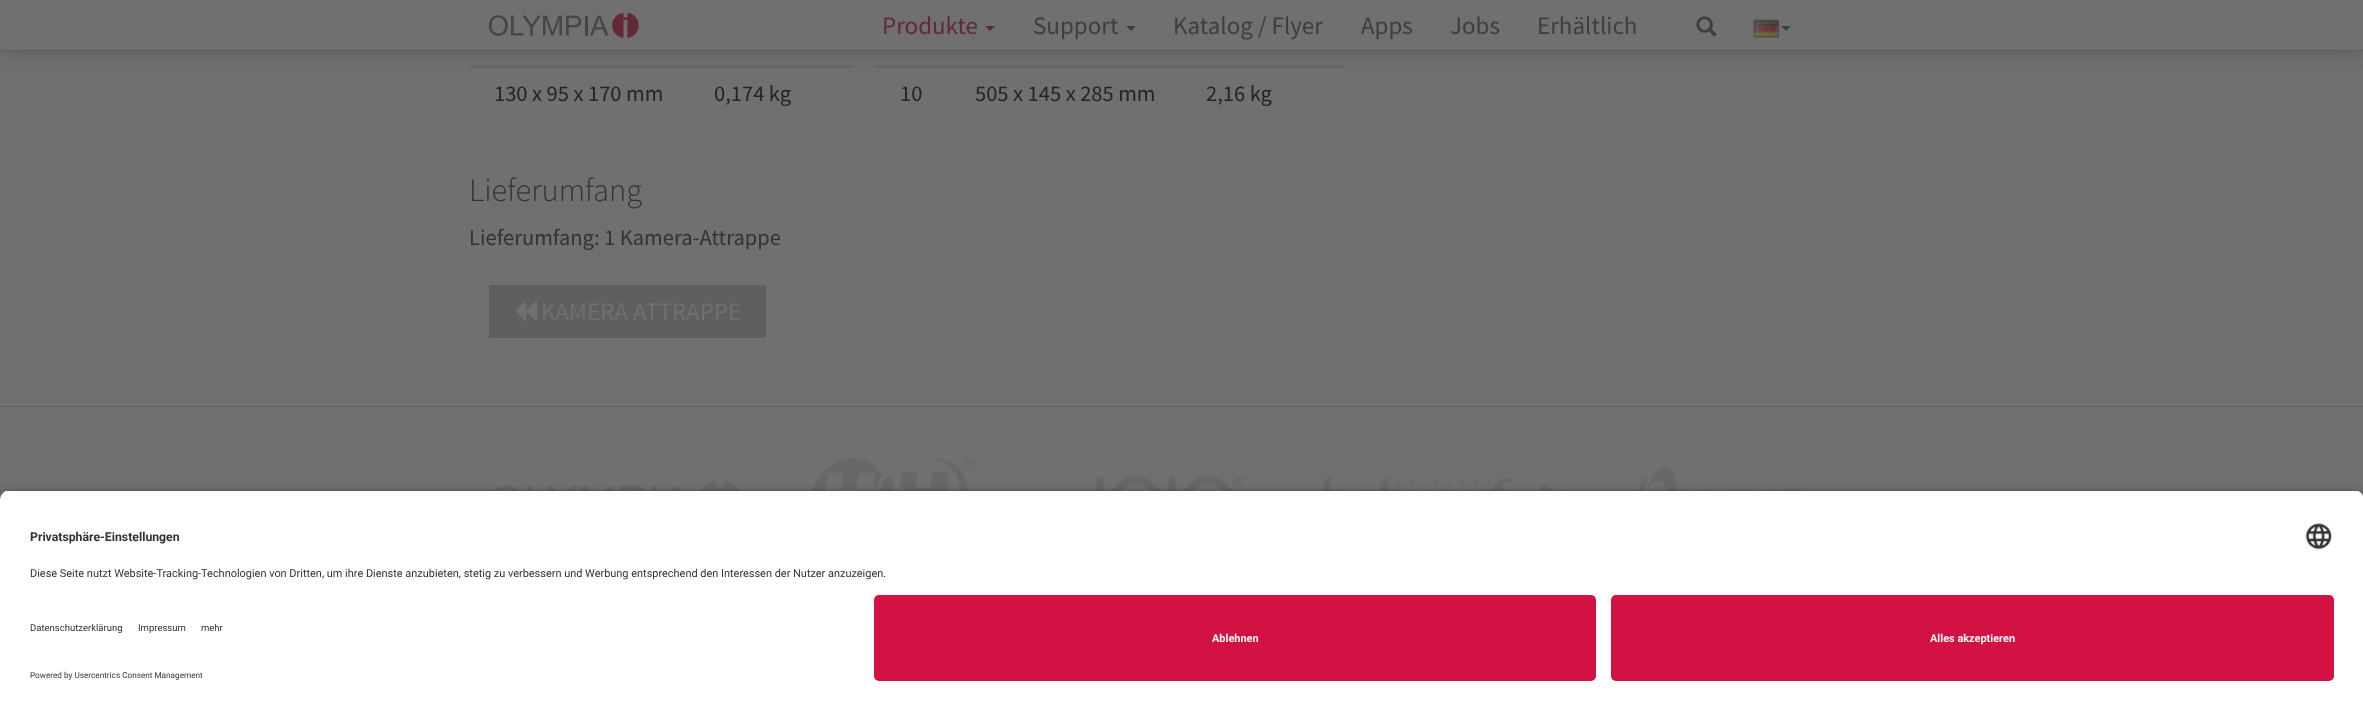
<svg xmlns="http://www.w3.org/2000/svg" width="2363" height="711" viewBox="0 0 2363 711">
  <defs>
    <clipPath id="clip1"><path d="M10 490H2354C2359.5 490 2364 494.5 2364 500V585H0V500C0 494.5 4.5 490 10 490Z"/></clipPath>
  </defs>
  <rect width="100%" height="100%" fill="rgb(112,112,112)"/>
  <rect x="470" y="65" width="383" height="3" fill="rgb(102,102,102)"/>
  <rect x="874" y="65" width="469" height="3" fill="rgb(102,102,102)"/>
  <rect x="0" y="0" width="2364" height="51" fill="rgba(36,36,36,0.3)" filter="blur(9.5px)"/>
  <rect x="0" y="0" width="2363" height="50" fill="rgb(112,112,112)"/>
  <rect x="0" y="50" width="2363" height="1" fill="rgb(96,96,96)"/>
  <image x="489" y="13" width="150" height="25" href="pic1.png"/>
  <text x="882" y="34" font-family="Source Sans Pro" font-size="25" fill="rgb(99,41,56)">Produkte</text>
  <path d="M985 26H995L990 31Z" fill="rgb(99,41,56)"/>
  <text x="1033" y="34" font-family="Source Sans Pro" font-size="25" fill="rgb(62,62,62)">Support</text>
  <path d="M1126 26H1136L1131 31Z" fill="rgb(62,62,62)"/>
  <g font-family="Source Sans Pro" font-size="25" fill="rgb(62,62,62)">
    <text x="1173" y="34">Katalog / Flyer</text>
    <text x="1361" y="34">Apps</text>
    <text x="1450" y="34">Jobs</text>
    <text x="1537" y="34">Erhältlich</text>
  </g>
  <image x="1696" y="16" width="21" height="21" href="pic2.png"/>
  <image x="1752" y="18" width="27" height="20" href="pic3.png"/>
  <path d="M1781 26H1791L1786 31Z" fill="rgb(62,62,62)"/>
  <g font-family="Source Sans Pro" font-size="22.5" fill="rgb(36,36,36)">
    <text x="494" y="101">130 x 95 x 170 mm</text>
    <text x="714" y="101">0,174 kg</text>
    <text x="900" y="101">10</text>
    <text x="975" y="101">505 x 145 x 285 mm</text>
    <text x="1206" y="101">2,16 kg</text>
  </g>
  <text x="469" y="201" font-family="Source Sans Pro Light" font-size="32.5" font-weight="300" fill="rgb(51,51,51)">Lieferumfang</text>
  <text x="469" y="245" font-family="Source Sans Pro" font-size="22.5" fill="rgb(51,51,51)">Lieferumfang: 1 Kamera-Attrappe</text>
  <rect x="489" y="285" width="277" height="53" fill="rgb(95,95,95)"/>
  <image x="515" y="300" width="22" height="22" href="pic4.png"/>
  <text x="541" y="320" font-family="Source Sans Pro" font-size="25" fill="rgb(112,112,112)">KAMERA ATTRAPPE</text>
  <rect x="0" y="406" width="2363" height="1" fill="rgb(96,96,96)"/>
  <image x="493" y="481" width="248" height="10" href="pic5.png"/>
  <image x="811" y="458" width="164" height="33" href="pic6.png"/>
  <image x="1096" y="476" width="148" height="15" href="pic7.png"/>
  <image x="1322" y="477" width="246" height="14" href="pic8.png"/>
  <image x="1637" y="467" width="170" height="24" href="pic9.png"/>
  <rect x="0" y="494" width="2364" height="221" rx="10" fill="rgba(0,0,0,0.8)" filter="blur(4.5px)"/>
  <g clip-path="url(#clip1)">
    <rect x="0" y="491" width="2363" height="94" fill="rgb(255,255,255)"/>
  </g>
  <text x="30" y="541" font-family="Roboto" font-size="12.25" font-weight="bold" fill="rgb(51,51,51)">Privatsphäre-Einstellungen</text>
  <image x="2305" y="523" width="27" height="27" href="pic10.png"/>
  <text x="30" y="577" font-family="Roboto" font-size="10.95" fill="rgb(51,51,51)">Diese Seite nutzt Website-Tracking-Technologien von Dritten, um ihre Dienste anzubieten, stetig zu verbessern und Werbung entsprechend den Interessen der Nutzer anzuzeigen.</text>
  <rect x="0" y="585" width="2363" height="126" fill="rgb(255,255,255)"/>
  <g font-family="Roboto" font-size="9.5" fill="rgb(51,51,51)">
    <text x="30" y="631">Datenschutzerklärung</text>
    <text x="138" y="631">Impressum</text>
    <text x="201" y="631">mehr</text>
  </g>
  <text x="30" y="678" font-family="Roboto" font-size="8.2" fill="rgb(51,51,51)">Powered by Usercentrics Consent Management</text>
  <rect x="874" y="595" width="722" height="86" rx="5" fill="rgb(210,18,66)"/>
  <text x="1212" y="642" font-family="Roboto" font-size="10.95" font-weight="bold" fill="rgb(250,250,250)">Ablehnen</text>
  <rect x="1611" y="595" width="723" height="86" rx="5" fill="rgb(210,18,66)"/>
  <text x="1930" y="642" font-family="Roboto" font-size="10.95" font-weight="bold" fill="rgb(250,250,250)">Alles akzeptieren</text>
</svg>
